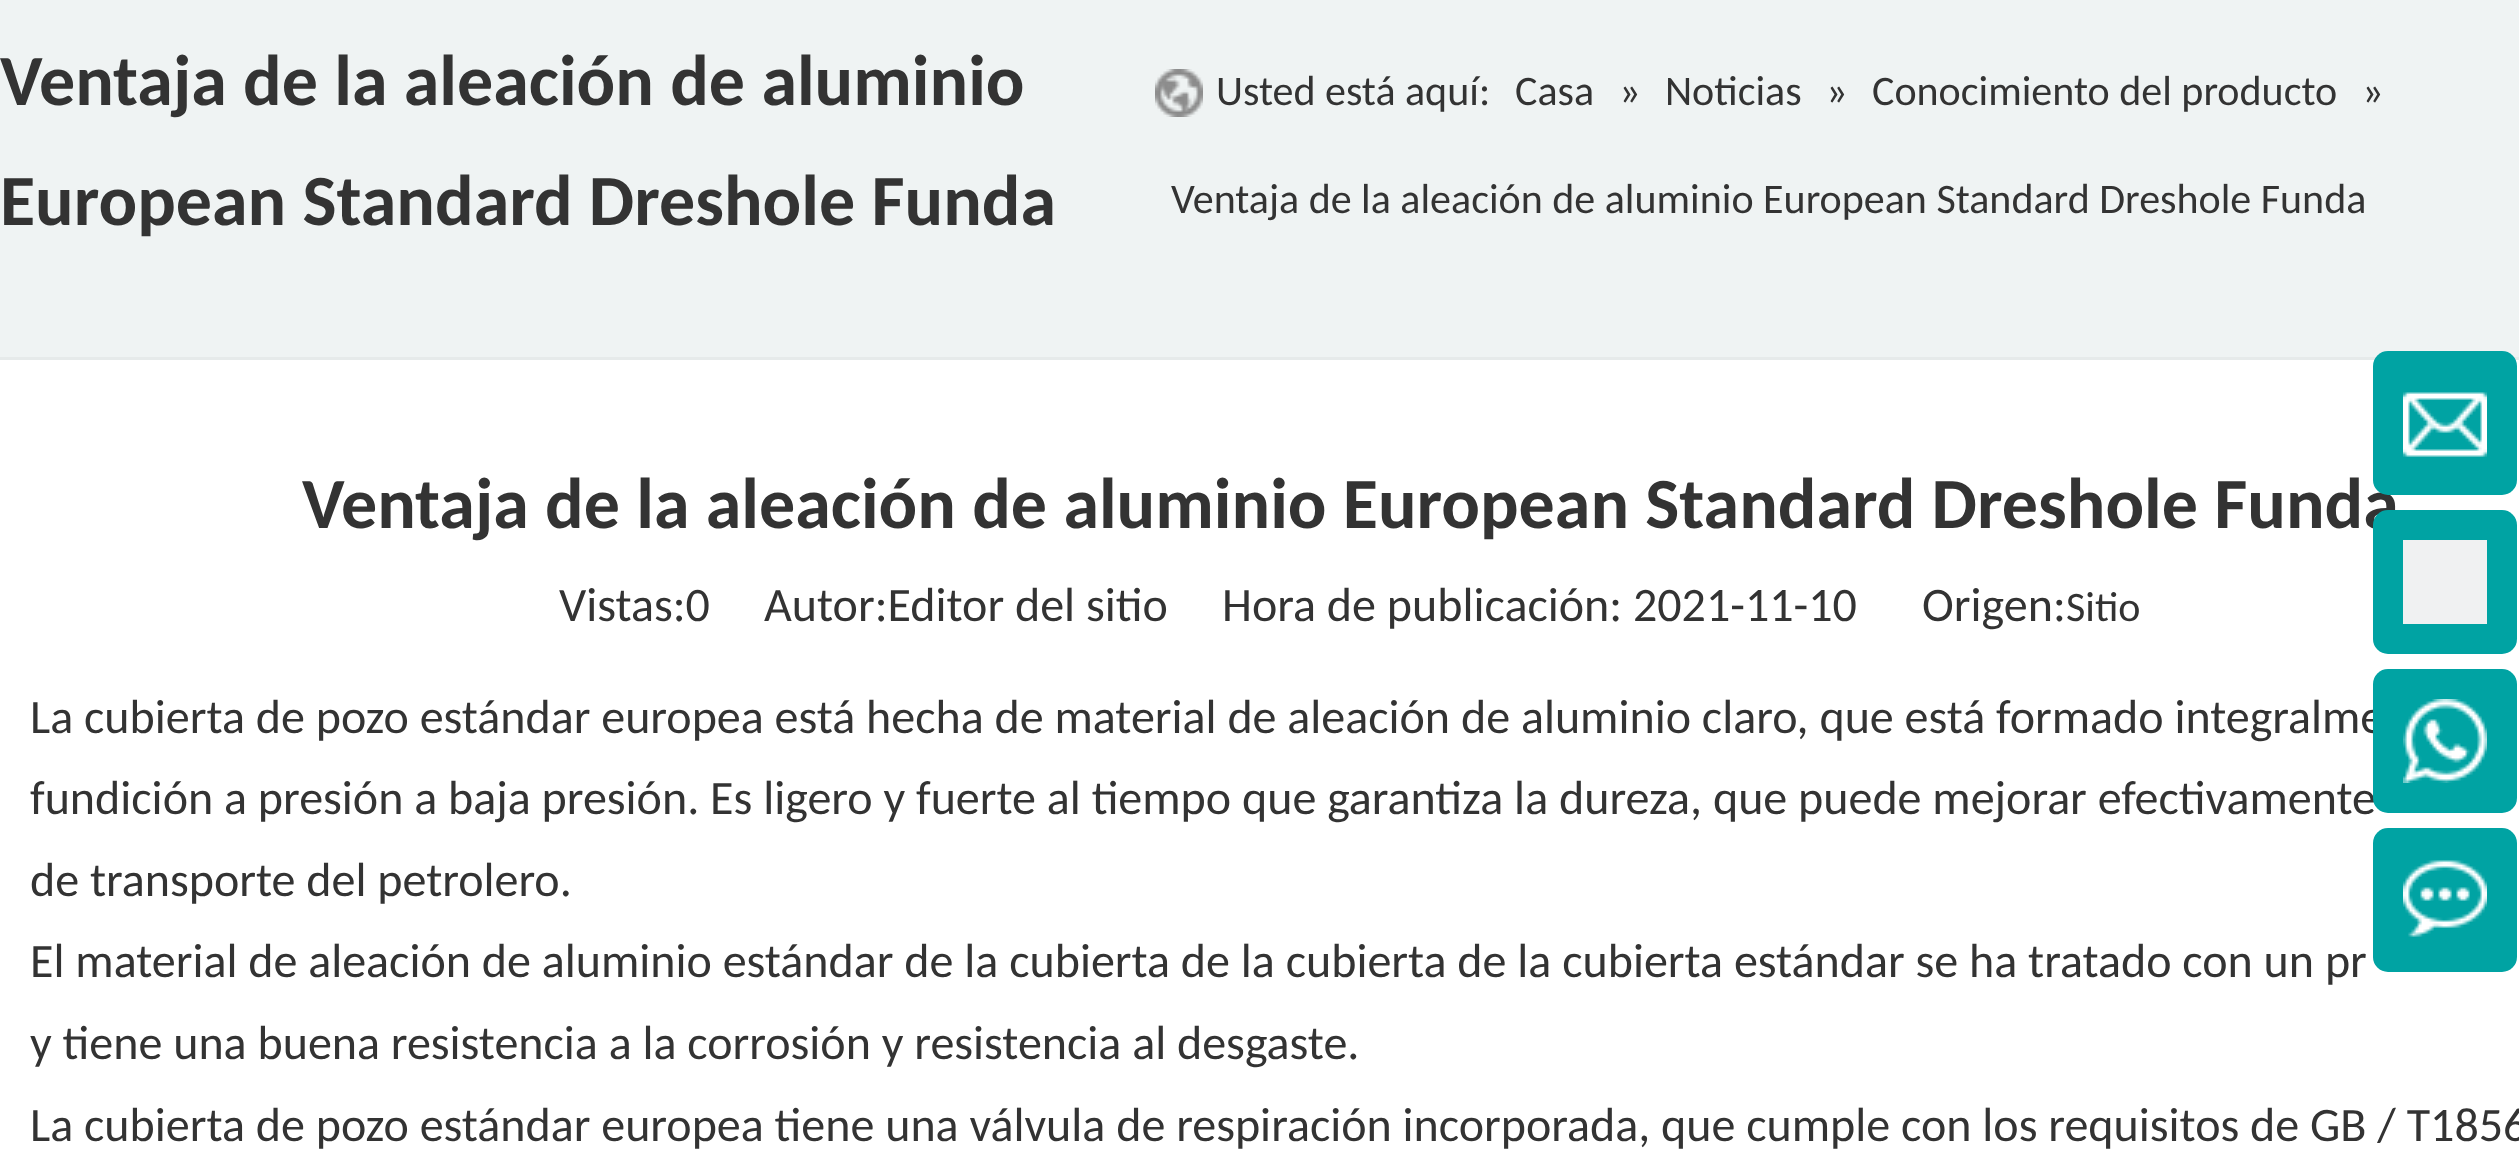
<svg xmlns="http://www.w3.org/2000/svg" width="2519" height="1156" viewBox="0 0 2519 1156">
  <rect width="100%" height="100%" fill="rgb(255,255,255)"/>
  <rect x="0" y="0" width="2519" height="357" fill="rgb(239,243,243)"/>
  <rect x="0" y="357" width="2519" height="3" fill="rgb(230,234,234)"/>
  <g font-family="Carlito" font-size="72" font-weight="bold" fill="rgb(51,51,51)">
    <text>
      <tspan x="0" y="105">Ventaja de la aleación de aluminio</tspan>
      <tspan x="0" y="225">European Standard Dreshole Funda</tspan>
    </text>
  </g>
  <image x="1155" y="69" width="48" height="48" href="pic1.png"/>
  <g font-family="Carlito" font-size="42" fill="rgb(51,51,51)">
    <text x="1216" y="105">Usted está aquí:</text>
    <text x="1515" y="105">Casa</text>
    <text x="1619" y="105">»</text>
    <text x="1665" y="105">Noticias</text>
    <text x="1826" y="105">»</text>
    <text x="1872" y="105">Conocimiento del producto</text>
    <text x="2362" y="105">»</text>
    <text x="1171" y="213">Ventaja de la aleación de aluminio European Standard Dreshole Funda</text>
  </g>
  <text x="302" y="528" font-family="Carlito" font-size="72" font-weight="bold" fill="rgb(51,51,51)">Ventaja de la aleación de aluminio European Standard Dreshole Funda</text>
  <g font-family="Carlito" font-size="48" fill="rgb(51,51,51)">
    <text x="559" y="621">Vistas:0</text>
    <text x="764" y="621" xml:space="preserve">Autor:Editor del sitio     Hora de publicación: 2021-11-10      Origen:</text>
  </g>
  <text x="2066" y="621" font-family="Carlito" font-size="42" fill="rgb(51,51,51)">Sitio</text>
  <g font-family="Carlito" font-size="48" fill="rgb(51,51,51)">
    <text>
      <tspan x="30" y="733">La cubierta de pozo estándar europea está hecha de material de aleación de aluminio claro, que está formado integralme</tspan>
      <tspan x="30" y="814">fundición a presión a baja presión. Es ligero y fuerte al tiempo que garantiza la dureza, que puede mejorar efectivamente</tspan>
      <tspan x="30" y="896">de transporte del petrolero.</tspan>
      <tspan x="30" y="977">El material de aleación de aluminio estándar de la cubierta de la cubierta de la cubierta estándar se ha tratado con un pr</tspan>
      <tspan x="30" y="1059">y tiene una buena resistencia a la corrosión y resistencia al desgaste.</tspan>
      <tspan x="30" y="1141">La cubierta de pozo estándar europea tiene una válvula de respiración incorporada, que cumple con los requisitos de GB / T1856</tspan>
    </text>
  </g>
  <rect x="2373" y="351" width="144" height="144" rx="15" fill="rgb(0,163,163)"/>
  <image x="2403" y="392" width="84" height="65" href="pic2.png"/>
  <rect x="2373" y="510" width="144" height="144" rx="15" fill="rgb(0,163,163)"/>
  <rect x="2403" y="540" width="84" height="84" fill="rgb(240,241,242)"/>
  <rect x="2373" y="669" width="144" height="144" rx="15" fill="rgb(0,163,163)"/>
  <image x="2403" y="699" width="84" height="84" href="pic3.png"/>
  <rect x="2373" y="828" width="144" height="144" rx="15" fill="rgb(0,163,163)"/>
  <image x="2403" y="860" width="84" height="77" href="pic4.png"/>
</svg>
